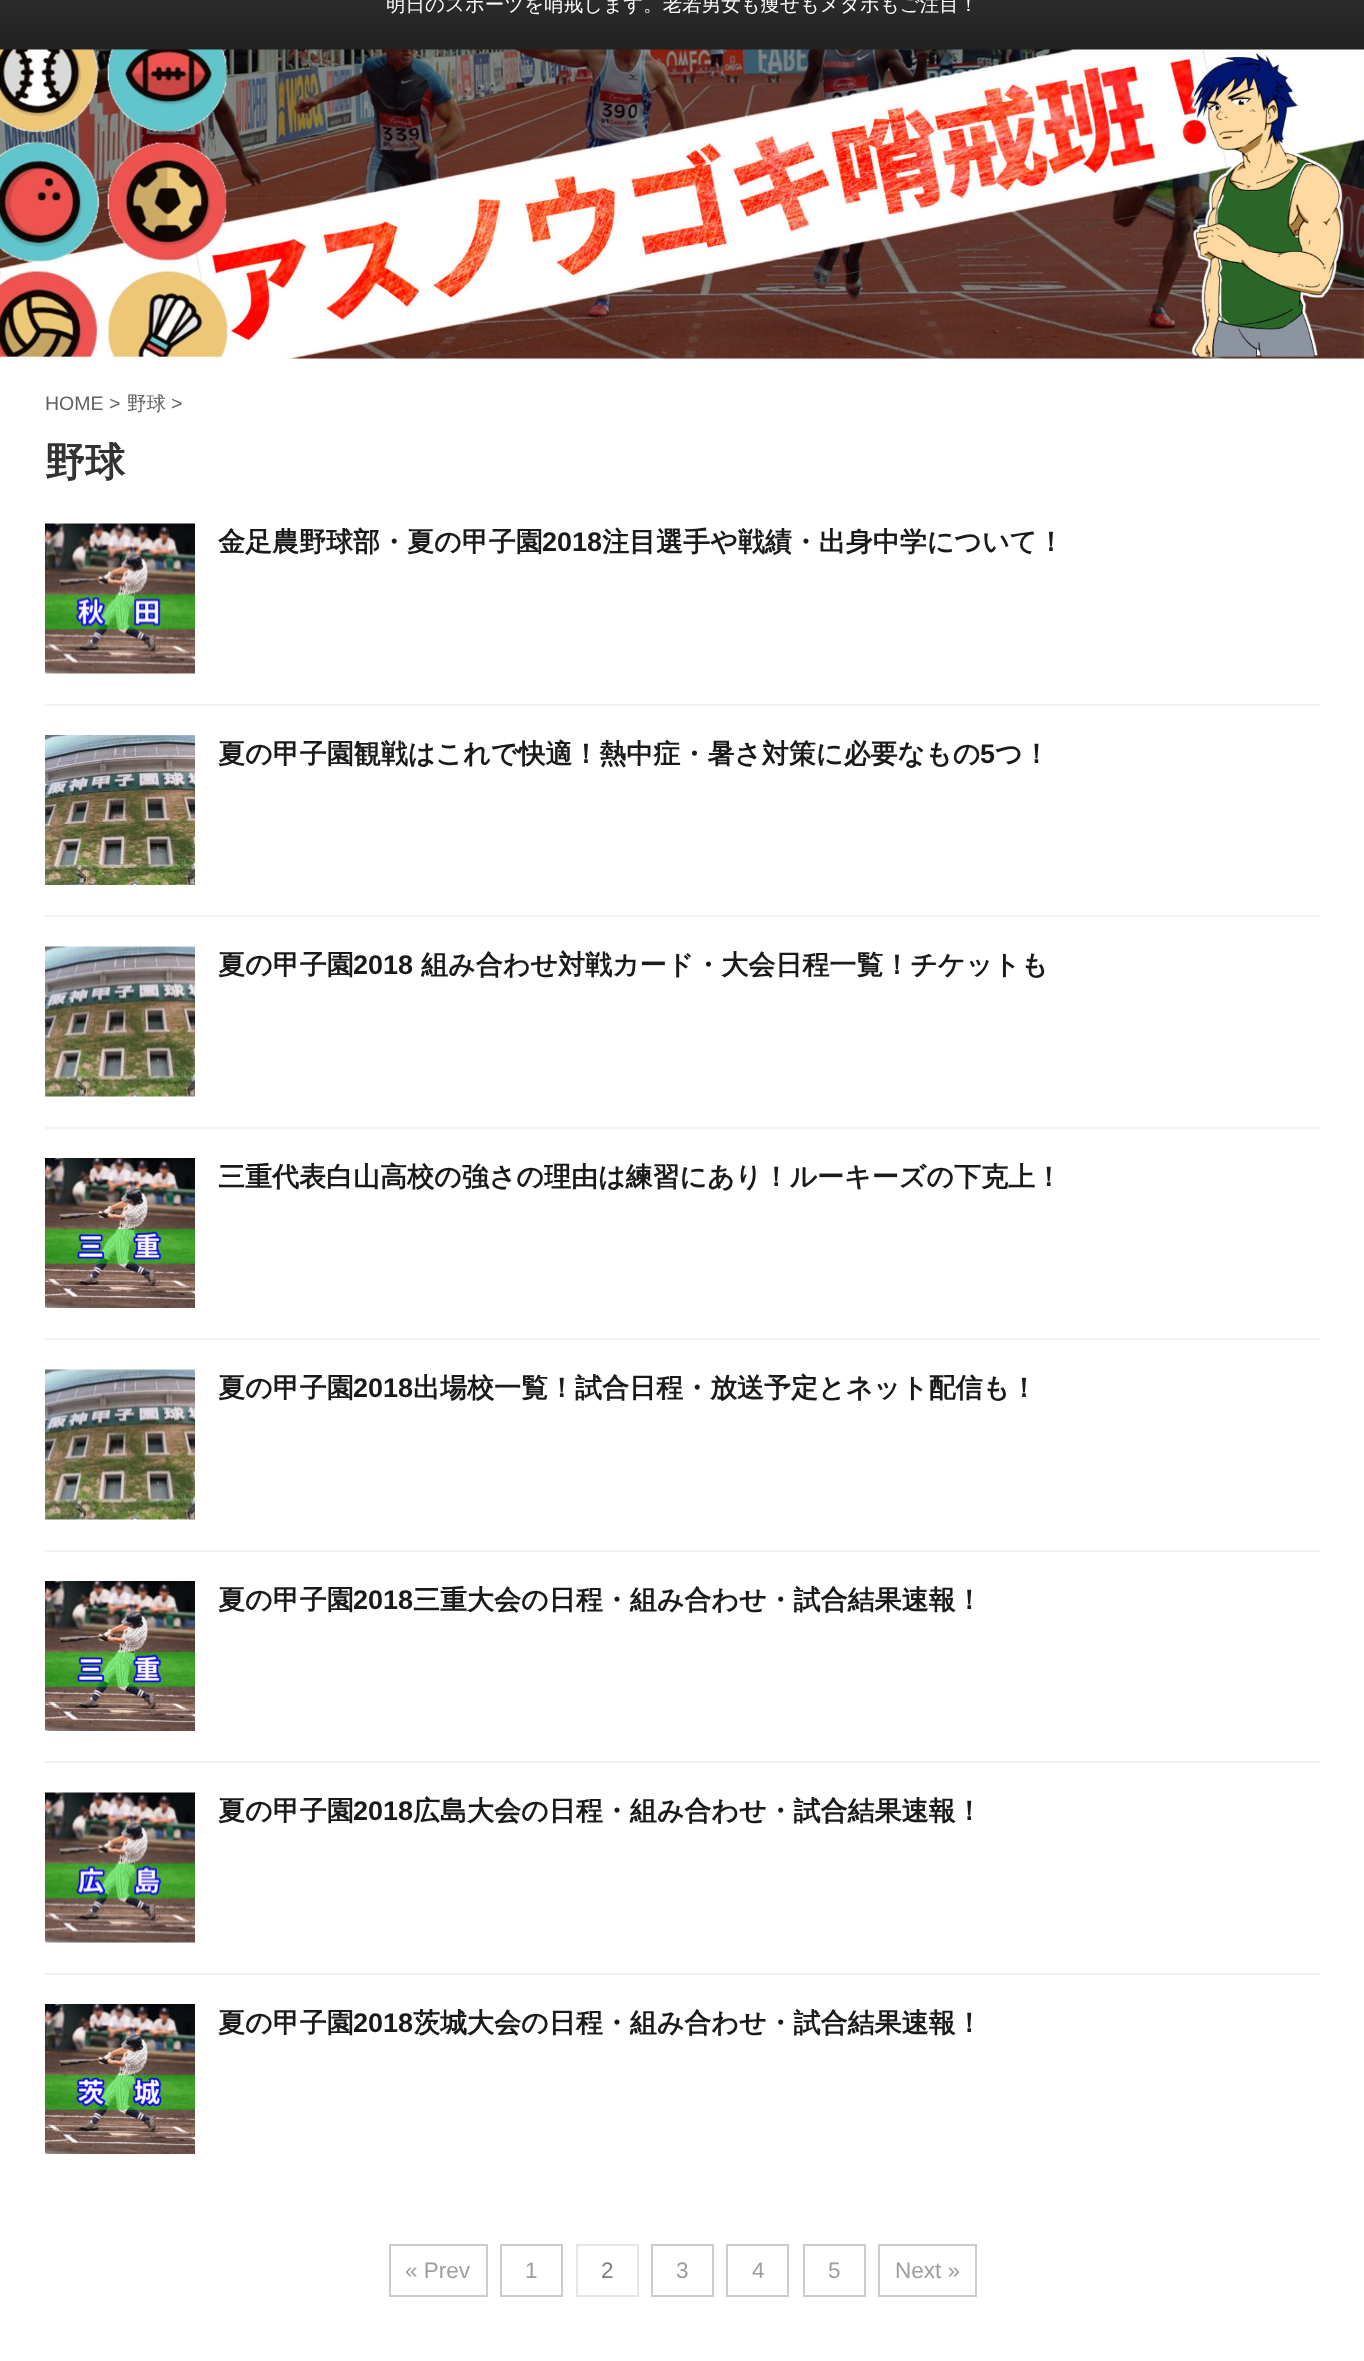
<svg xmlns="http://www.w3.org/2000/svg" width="1364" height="2361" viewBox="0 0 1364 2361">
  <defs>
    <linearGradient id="g1" gradientUnits="userSpaceOnUse" x1="683" y1="-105" x2="683" y2="50"><stop offset="0" stop-color="rgb(66,66,66)"/><stop offset="1" stop-color="rgb(33,33,33)"/></linearGradient>
  </defs>
  <rect width="100%" height="100%" fill="rgb(250,250,250)"/>
  <rect x="0" y="0" width="1364" height="50" fill="url(#g1)"/>
  <text x="386" y="11" font-family="WenQuanYi Zen Hei" font-size="19.5" font-weight="500" fill="rgb(255,255,255)">明日のスポーツを哨戒します。老若男女も痩せもメタボもご注目！</text>
  <image x="0" y="49" width="1364" height="310" href="pic1.png"/>
  <rect x="0" y="359" width="1364" height="2002" fill="rgb(255,255,255)"/>
  <text x="45" y="410" font-family="Liberation Sans" font-size="19.5" fill="rgb(97,97,97)">HOME &gt;</text>
  <text x="127" y="410" font-family="WenQuanYi Zen Hei" font-size="19.5" font-weight="500" fill="rgb(97,97,97)">野球</text>
  <text x="171" y="410" font-family="Liberation Sans" font-size="19.5" fill="rgb(97,97,97)">&gt;</text>
  <text x="45" y="476" font-family="WenQuanYi Zen Hei" font-size="40" font-weight="bold" fill="rgb(51,51,51)">野球</text>
  <rect x="45" y="704" width="1275" height="2" fill="rgb(243,243,243)"/>
  <image x="45" y="523" width="150" height="151" href="pic2.png"/>
  <text x="218" y="551" font-family="WenQuanYi Zen Hei" font-size="27" font-weight="bold" fill="rgb(26,26,26)">金足農野球部・夏の甲子園</text>
  <text x="542" y="551" font-family="Liberation Sans" font-size="27" font-weight="bold" fill="rgb(26,26,26)">2018</text>
  <text x="602" y="551" font-family="WenQuanYi Zen Hei" font-size="27" font-weight="bold" fill="rgb(26,26,26)">注目選手や戦績・出身中学について！</text>
  <rect x="45" y="915" width="1275" height="2" fill="rgb(243,243,243)"/>
  <image x="45" y="735" width="150" height="150" href="pic3.png"/>
  <text x="218" y="763" font-family="WenQuanYi Zen Hei" font-size="27" font-weight="bold" fill="rgb(26,26,26)">夏の甲子園観戦はこれで快適！熱中症・暑さ対策に必要なもの</text>
  <text x="980" y="763" font-family="Liberation Sans" font-size="27" font-weight="bold" fill="rgb(26,26,26)">5</text>
  <text x="995" y="763" font-family="WenQuanYi Zen Hei" font-size="27" font-weight="bold" fill="rgb(26,26,26)">つ！</text>
  <rect x="45" y="1127" width="1275" height="2" fill="rgb(243,243,243)"/>
  <image x="45" y="946" width="150" height="151" href="pic4.png"/>
  <text x="218" y="974" font-family="WenQuanYi Zen Hei" font-size="27" font-weight="bold" fill="rgb(26,26,26)">夏の甲子園</text>
  <text x="353" y="974" font-family="Liberation Sans" font-size="27" font-weight="bold" fill="rgb(26,26,26)">2018</text>
  <text x="421" y="974" font-family="WenQuanYi Zen Hei" font-size="27" font-weight="bold" fill="rgb(26,26,26)">組み合わせ対戦カード・大会日程一覧！チケットも</text>
  <rect x="45" y="1338" width="1275" height="2" fill="rgb(243,243,243)"/>
  <image x="45" y="1158" width="150" height="150" href="pic5.png"/>
  <text x="218" y="1186" font-family="WenQuanYi Zen Hei" font-size="27" font-weight="bold" fill="rgb(26,26,26)">三重代表白山高校の強さの理由は練習にあり！ルーキーズの下克上！</text>
  <rect x="45" y="1550" width="1275" height="2" fill="rgb(243,243,243)"/>
  <image x="45" y="1369" width="150" height="151" href="pic4.png"/>
  <text x="218" y="1397" font-family="WenQuanYi Zen Hei" font-size="27" font-weight="bold" fill="rgb(26,26,26)">夏の甲子園</text>
  <text x="353" y="1397" font-family="Liberation Sans" font-size="27" font-weight="bold" fill="rgb(26,26,26)">2018</text>
  <text x="413" y="1397" font-family="WenQuanYi Zen Hei" font-size="27" font-weight="bold" fill="rgb(26,26,26)">出場校一覧！試合日程・放送予定とネット配信も！</text>
  <rect x="45" y="1761" width="1275" height="2" fill="rgb(243,243,243)"/>
  <image x="45" y="1581" width="150" height="150" href="pic5.png"/>
  <text x="218" y="1609" font-family="WenQuanYi Zen Hei" font-size="27" font-weight="bold" fill="rgb(26,26,26)">夏の甲子園</text>
  <text x="353" y="1609" font-family="Liberation Sans" font-size="27" font-weight="bold" fill="rgb(26,26,26)">2018</text>
  <text x="413" y="1609" font-family="WenQuanYi Zen Hei" font-size="27" font-weight="bold" fill="rgb(26,26,26)">三重大会の日程・組み合わせ・試合結果速報！</text>
  <rect x="45" y="1973" width="1275" height="2" fill="rgb(243,243,243)"/>
  <image x="45" y="1792" width="150" height="151" href="pic6.png"/>
  <text x="218" y="1820" font-family="WenQuanYi Zen Hei" font-size="27" font-weight="bold" fill="rgb(26,26,26)">夏の甲子園</text>
  <text x="353" y="1820" font-family="Liberation Sans" font-size="27" font-weight="bold" fill="rgb(26,26,26)">2018</text>
  <text x="413" y="1820" font-family="WenQuanYi Zen Hei" font-size="27" font-weight="bold" fill="rgb(26,26,26)">広島大会の日程・組み合わせ・試合結果速報！</text>
  <image x="45" y="2004" width="150" height="150" href="pic7.png"/>
  <text x="218" y="2032" font-family="WenQuanYi Zen Hei" font-size="27" font-weight="bold" fill="rgb(26,26,26)">夏の甲子園</text>
  <text x="353" y="2032" font-family="Liberation Sans" font-size="27" font-weight="bold" fill="rgb(26,26,26)">2018</text>
  <text x="413" y="2032" font-family="WenQuanYi Zen Hei" font-size="27" font-weight="bold" fill="rgb(26,26,26)">茨城大会の日程・組み合わせ・試合結果速報！</text>
  <rect x="390" y="2245" width="97" height="51" fill="none" stroke="rgb(204,204,204)" stroke-width="2"/>
  <text x="405" y="2278" font-family="Liberation Sans" font-size="22.5" fill="rgb(158,158,158)">« Prev</text>
  <rect x="501" y="2245" width="61" height="51" fill="none" stroke="rgb(204,204,204)" stroke-width="2"/>
  <text x="525" y="2278" font-family="Liberation Sans" font-size="22.5" fill="rgb(158,158,158)">1</text>
  <rect x="577" y="2245" width="61" height="51" fill="none" stroke="rgb(230,230,230)" stroke-width="2"/>
  <text x="601" y="2278" font-family="Liberation Sans" font-size="22.5" fill="rgb(128,128,128)">2</text>
  <rect x="652" y="2245" width="61" height="51" fill="none" stroke="rgb(204,204,204)" stroke-width="2"/>
  <text x="676" y="2278" font-family="Liberation Sans" font-size="22.5" fill="rgb(158,158,158)">3</text>
  <rect x="727" y="2245" width="61" height="51" fill="none" stroke="rgb(204,204,204)" stroke-width="2"/>
  <text x="752" y="2278" font-family="Liberation Sans" font-size="22.5" fill="rgb(158,158,158)">4</text>
  <rect x="804" y="2245" width="61" height="51" fill="none" stroke="rgb(204,204,204)" stroke-width="2"/>
  <text x="828" y="2278" font-family="Liberation Sans" font-size="22.5" fill="rgb(158,158,158)">5</text>
  <rect x="879" y="2245" width="97" height="51" fill="none" stroke="rgb(204,204,204)" stroke-width="2"/>
  <text x="895" y="2278" font-family="Liberation Sans" font-size="22.5" fill="rgb(158,158,158)">Next »</text>
</svg>
